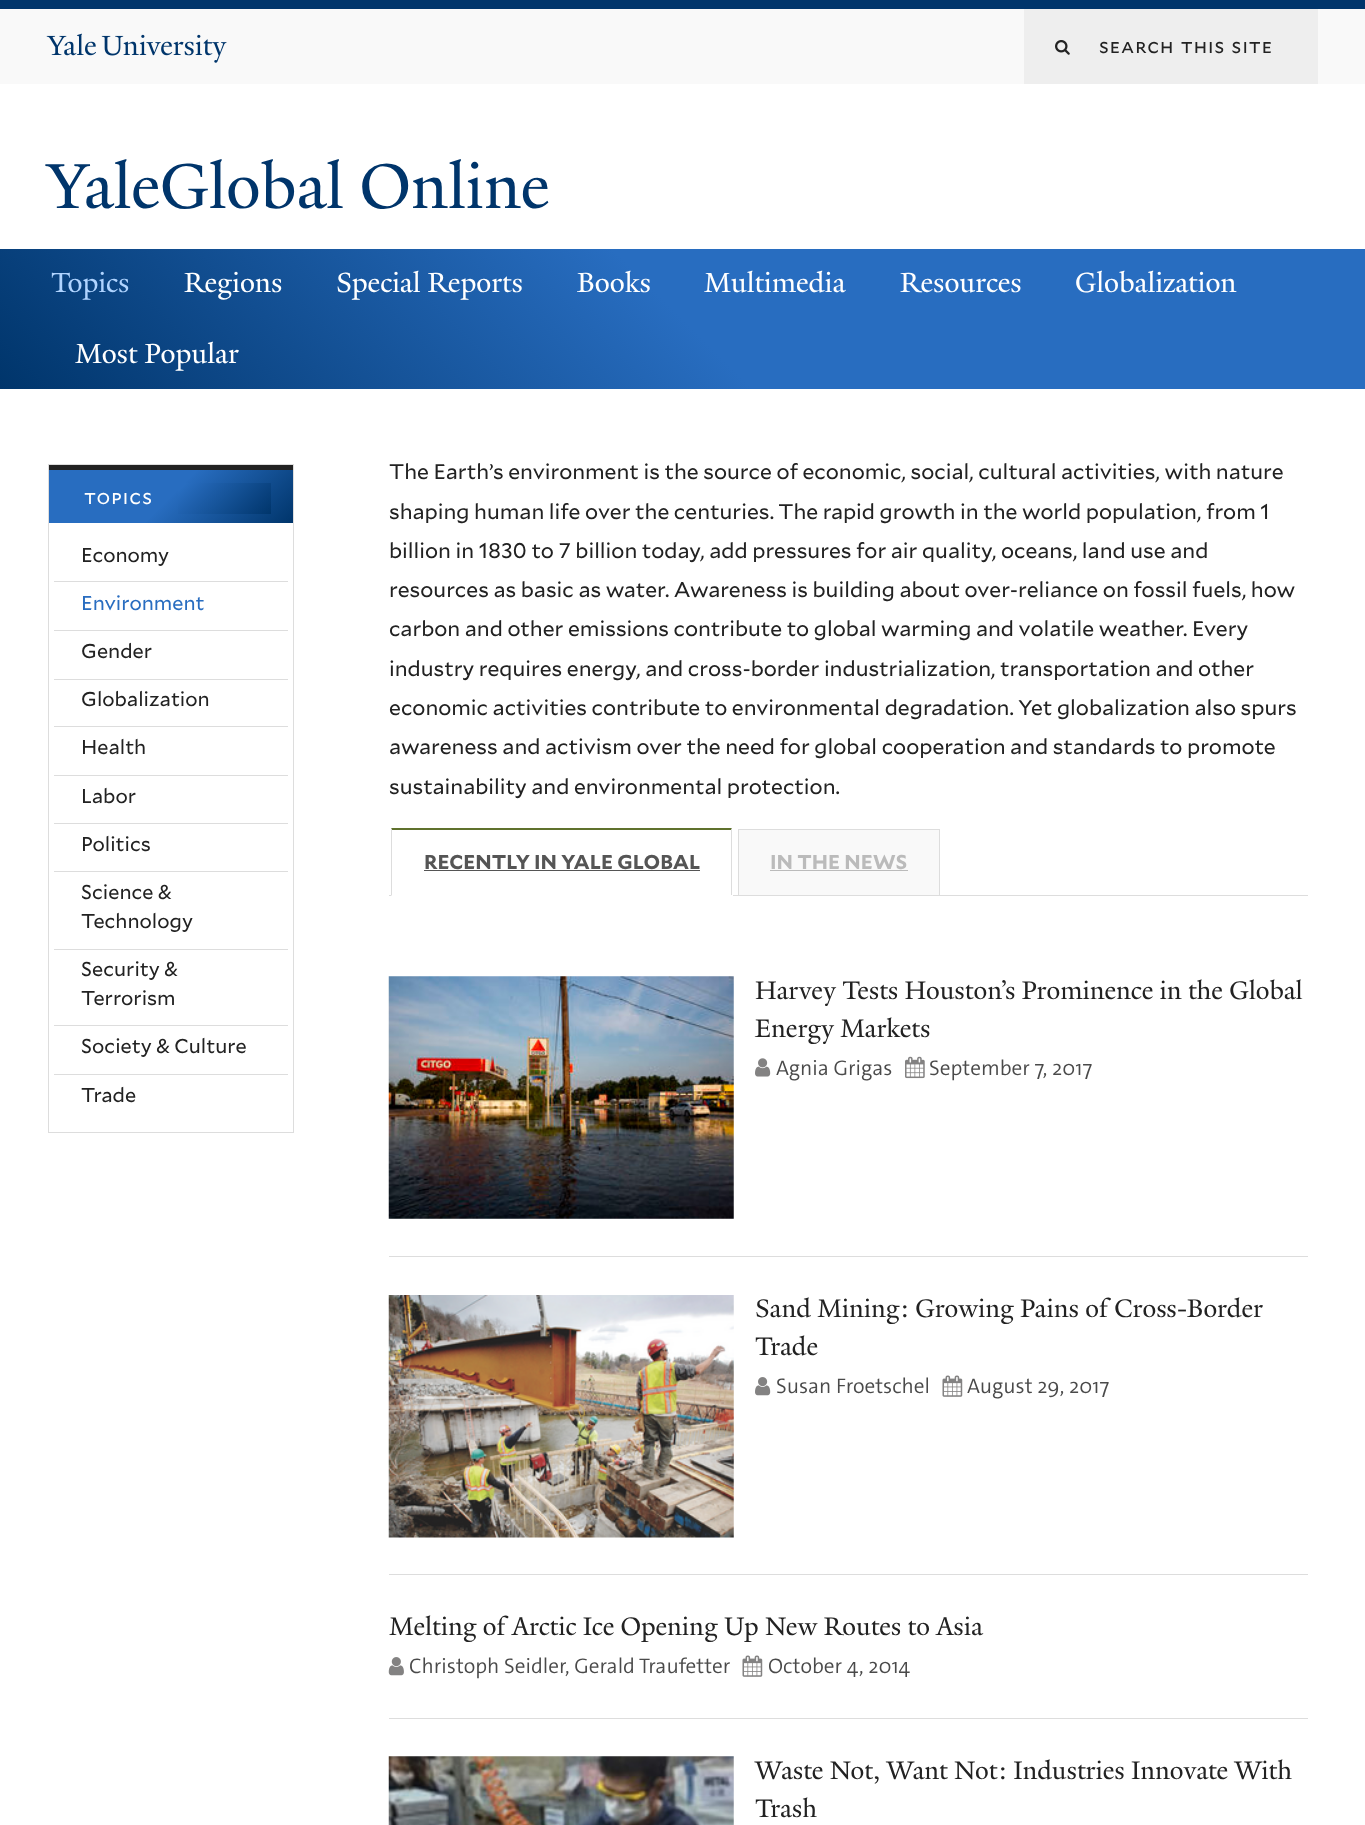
<svg xmlns="http://www.w3.org/2000/svg" width="1365" height="1825" viewBox="0 0 1365 1825">
  <defs>
    <linearGradient id="g1" gradientUnits="userSpaceOnUse" x1="306" y1="695" x2="1059" y2="-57"><stop offset="0" stop-color="rgb(0,53,107)"/><stop offset="0.5" stop-color="rgb(40,109,192)"/></linearGradient>
    <linearGradient id="g2" gradientUnits="userSpaceOnUse" x1="245" y1="570" x2="97" y2="422"><stop offset="0" stop-color="rgb(0,53,107)"/><stop offset="0.5" stop-color="rgb(40,109,192)"/></linearGradient>
    <linearGradient id="g3" gradientUnits="userSpaceOnUse" x1="229" y1="556" x2="113" y2="440"><stop offset="0" stop-color="rgb(0,53,107)"/><stop offset="0.5" stop-color="rgb(40,109,192)"/></linearGradient>
  </defs>
  <rect width="100%" height="100%" fill="rgb(255,255,255)"/>
  <rect x="0" y="0" width="1365" height="9" fill="rgb(0,53,107)"/>
  <rect x="0" y="9" width="1365" height="75" fill="rgb(249,249,249)"/>
  <image x="46" y="33" width="50" height="23" href="pic1.png"/>
  <image x="101" y="34" width="126" height="29" href="pic2.png"/>
  <rect x="1024" y="9" width="294" height="75" fill="rgb(238,238,238)"/>
  <image x="1055" y="40" width="15" height="15" href="pic3.png"/>
  <text x="1099" y="53" word-spacing="1" font-family="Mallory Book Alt" font-size="19.75" letter-spacing="1" fill="rgb(34,34,34)">search this site</text>
  <text x="47" y="208" font-family="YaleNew" font-size="68.75" fill="rgb(0,53,107)">YaleGlobal Online</text>
  <rect x="0" y="249" width="1365" height="140" fill="url(#g1)"/>
  <text x="51" y="292" font-family="YaleNew" font-size="30" fill="rgb(176,212,255)">Topics</text>
  <g font-family="YaleNew" font-size="30" fill="rgb(255,255,255)">
    <text x="184" y="292">Regions</text>
    <text x="336" y="292">Special Reports</text>
    <text x="577" y="292">Books</text>
    <text x="704" y="292">Multimedia</text>
    <text x="900" y="292">Resources</text>
    <text x="1075" y="292">Globalization</text>
    <text x="75" y="363">Most Popular</text>
  </g>
  <rect x="48.5" y="464.5" width="245" height="668" fill="none" stroke="rgb(221,221,221)"/>
  <rect x="49" y="470" width="244" height="53" fill="url(#g2)"/>
  <rect x="49" y="465" width="244" height="5" fill="rgb(34,34,34)"/>
  <rect x="178" y="483" width="93" height="31" fill="url(#g3)"/>
  <text x="84" y="504" font-family="Mallory Book Alt" font-size="19.75" letter-spacing="1" fill="rgb(255,255,255)">topics</text>
  <rect x="54" y="581" width="234" height="1" fill="rgb(221,221,221)"/>
  <text x="81" y="562" font-family="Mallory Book" font-size="20" fill="rgb(34,34,34)">Economy</text>
  <rect x="54" y="630" width="234" height="1" fill="rgb(221,221,221)"/>
  <text x="81" y="610" font-family="Mallory Book" font-size="20" fill="rgb(41,109,192)">Environment</text>
  <rect x="54" y="679" width="234" height="1" fill="rgb(221,221,221)"/>
  <text x="81" y="658" font-family="Mallory Book" font-size="20" fill="rgb(34,34,34)">Gender</text>
  <rect x="54" y="726" width="234" height="1" fill="rgb(221,221,221)"/>
  <text x="81" y="706" font-family="Mallory Book" font-size="20" fill="rgb(34,34,34)">Globalization</text>
  <rect x="54" y="775" width="234" height="1" fill="rgb(221,221,221)"/>
  <text x="81" y="754" font-family="Mallory Book" font-size="20" fill="rgb(34,34,34)">Health</text>
  <rect x="54" y="823" width="234" height="1" fill="rgb(221,221,221)"/>
  <text x="81" y="803" font-family="Mallory Book" font-size="20" fill="rgb(34,34,34)">Labor</text>
  <rect x="54" y="871" width="234" height="1" fill="rgb(221,221,221)"/>
  <text x="81" y="851" font-family="Mallory Book" font-size="20" fill="rgb(34,34,34)">Politics</text>
  <rect x="54" y="949" width="234" height="1" fill="rgb(221,221,221)"/>
  <g font-family="Mallory Book" font-size="20" fill="rgb(34,34,34)">
    <text>
      <tspan x="81" y="899">Science &amp;</tspan>
      <tspan x="81" y="928">Technology</tspan>
    </text>
  </g>
  <rect x="54" y="1025" width="234" height="1" fill="rgb(221,221,221)"/>
  <g font-family="Mallory Book" font-size="20" fill="rgb(34,34,34)">
    <text>
      <tspan x="81" y="976">Security &amp;</tspan>
      <tspan x="81" y="1005">Terrorism</tspan>
    </text>
  </g>
  <rect x="54" y="1074" width="234" height="1" fill="rgb(221,221,221)"/>
  <g font-family="Mallory Book" font-size="20" fill="rgb(34,34,34)">
    <text x="81" y="1053">Society &amp; Culture</text>
    <text x="81" y="1102">Trade</text>
  </g>
  <g font-family="Mallory Book" font-size="21.25" fill="rgb(34,34,34)">
    <text>
      <tspan x="389" y="479">The Earth’s environment is the source of economic, social, cultural activities, with nature</tspan>
      <tspan x="389" y="519">shaping human life over the centuries. The rapid growth in the world population, from 1</tspan>
      <tspan x="389" y="558">billion in 1830 to 7 billion today, add pressures for air quality, oceans, land use and</tspan>
      <tspan x="389" y="597">resources as basic as water. Awareness is building about over-reliance on fossil fuels, how</tspan>
      <tspan x="389" y="636">carbon and other emissions contribute to global warming and volatile weather. Every</tspan>
      <tspan x="389" y="676">industry requires energy, and cross-border industrialization, transportation and other</tspan>
      <tspan x="389" y="715">economic activities contribute to environmental degradation. Yet globalization also spurs</tspan>
      <tspan x="389" y="754">awareness and activism over the need for global cooperation and standards to promote</tspan>
      <tspan x="389" y="794">sustainability and environmental protection.</tspan>
    </text>
  </g>
  <rect x="389" y="895" width="919" height="1" fill="rgb(221,221,221)"/>
  <path d="M391 828H732L731 830H392Z" fill="rgb(95,113,45)"/>
  <path d="M732 828V896L731 895V830Z" fill="rgb(221,221,221)"/>
  <rect x="391" y="895" width="342" height="1" fill="rgb(255,255,255)"/>
  <path d="M391 896V828L392 830V895Z" fill="rgb(221,221,221)"/>
  <text x="424" y="869" font-family="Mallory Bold" font-size="20" font-weight="bold" fill="rgb(85,85,85)">RECENTLY IN YALE GLOBAL</text>
  <rect x="424" y="870" width="276" height="1" fill="rgb(85,85,85)"/>
  <rect x="738.5" y="829.5" width="201" height="66" fill="rgb(249,249,249)" stroke="rgb(221,221,221)"/>
  <text x="770" y="869" font-family="Mallory Bold" font-size="20" font-weight="bold" fill="rgb(187,187,187)">IN THE NEWS</text>
  <rect x="770" y="870" width="138" height="1" fill="rgb(187,187,187)"/>
  <rect x="389" y="1256" width="919" height="1" fill="rgb(221,221,221)"/>
  <image x="388" y="976" width="346" height="243" href="pic4.png"/>
  <g font-family="YaleNew" font-size="27.5" fill="rgb(34,34,34)">
    <text>
      <tspan x="755" y="999">Harvey Tests Houston’s Prominence in the Global</tspan>
      <tspan x="755" y="1037">Energy Markets</tspan>
    </text>
  </g>
  <image x="755" y="1058" width="16" height="19" href="pic5.png"/>
  <text x="776" y="1075" font-family="'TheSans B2'" font-size="21.25" font-weight="300" fill="rgb(74,74,74)">Agnia Grigas</text>
  <image x="905" y="1056" width="20" height="23" href="pic6.png"/>
  <text x="929" y="1075" font-family="'TheSans B2'" font-size="21.25" font-weight="300" fill="rgb(74,74,74)">September 7, 2017</text>
  <rect x="389" y="1574" width="919" height="1" fill="rgb(221,221,221)"/>
  <image x="388" y="1295" width="346" height="243" href="pic7.png"/>
  <g font-family="YaleNew" font-size="27.5" fill="rgb(34,34,34)">
    <text>
      <tspan x="755" y="1317">Sand Mining: Growing Pains of Cross-Border</tspan>
      <tspan x="755" y="1355">Trade</tspan>
    </text>
  </g>
  <image x="755" y="1377" width="16" height="19" href="pic8.png"/>
  <text x="776" y="1393" font-family="'TheSans B2'" font-size="21.25" font-weight="300" fill="rgb(74,74,74)">Susan Froetschel</text>
  <image x="942" y="1375" width="21" height="22" href="pic9.png"/>
  <text x="967" y="1393" font-family="'TheSans B2'" font-size="21.25" font-weight="300" fill="rgb(74,74,74)">August 29, 2017</text>
  <rect x="389" y="1718" width="919" height="1" fill="rgb(221,221,221)"/>
  <text x="389" y="1635" font-family="YaleNew" font-size="27.5" fill="rgb(34,34,34)">Melting of Arctic Ice Opening Up New Routes to Asia</text>
  <image x="388" y="1657" width="16" height="19" href="pic10.png"/>
  <text x="409" y="1673" font-family="'TheSans B2'" font-size="21.25" font-weight="300" fill="rgb(74,74,74)">Christoph Seidler, Gerald Traufetter</text>
  <image x="742" y="1655" width="21" height="22" href="pic9.png"/>
  <text x="768" y="1673" font-family="'TheSans B2'" font-size="21.25" font-weight="300" fill="rgb(74,74,74)">October 4, 2014</text>
  <image x="388" y="1756" width="346" height="69" href="pic11.png"/>
  <g font-family="YaleNew" font-size="27.5" fill="rgb(34,34,34)">
    <text>
      <tspan x="755" y="1779">Waste Not, Want Not: Industries Innovate With</tspan>
      <tspan x="755" y="1817">Trash</tspan>
    </text>
  </g>
</svg>
